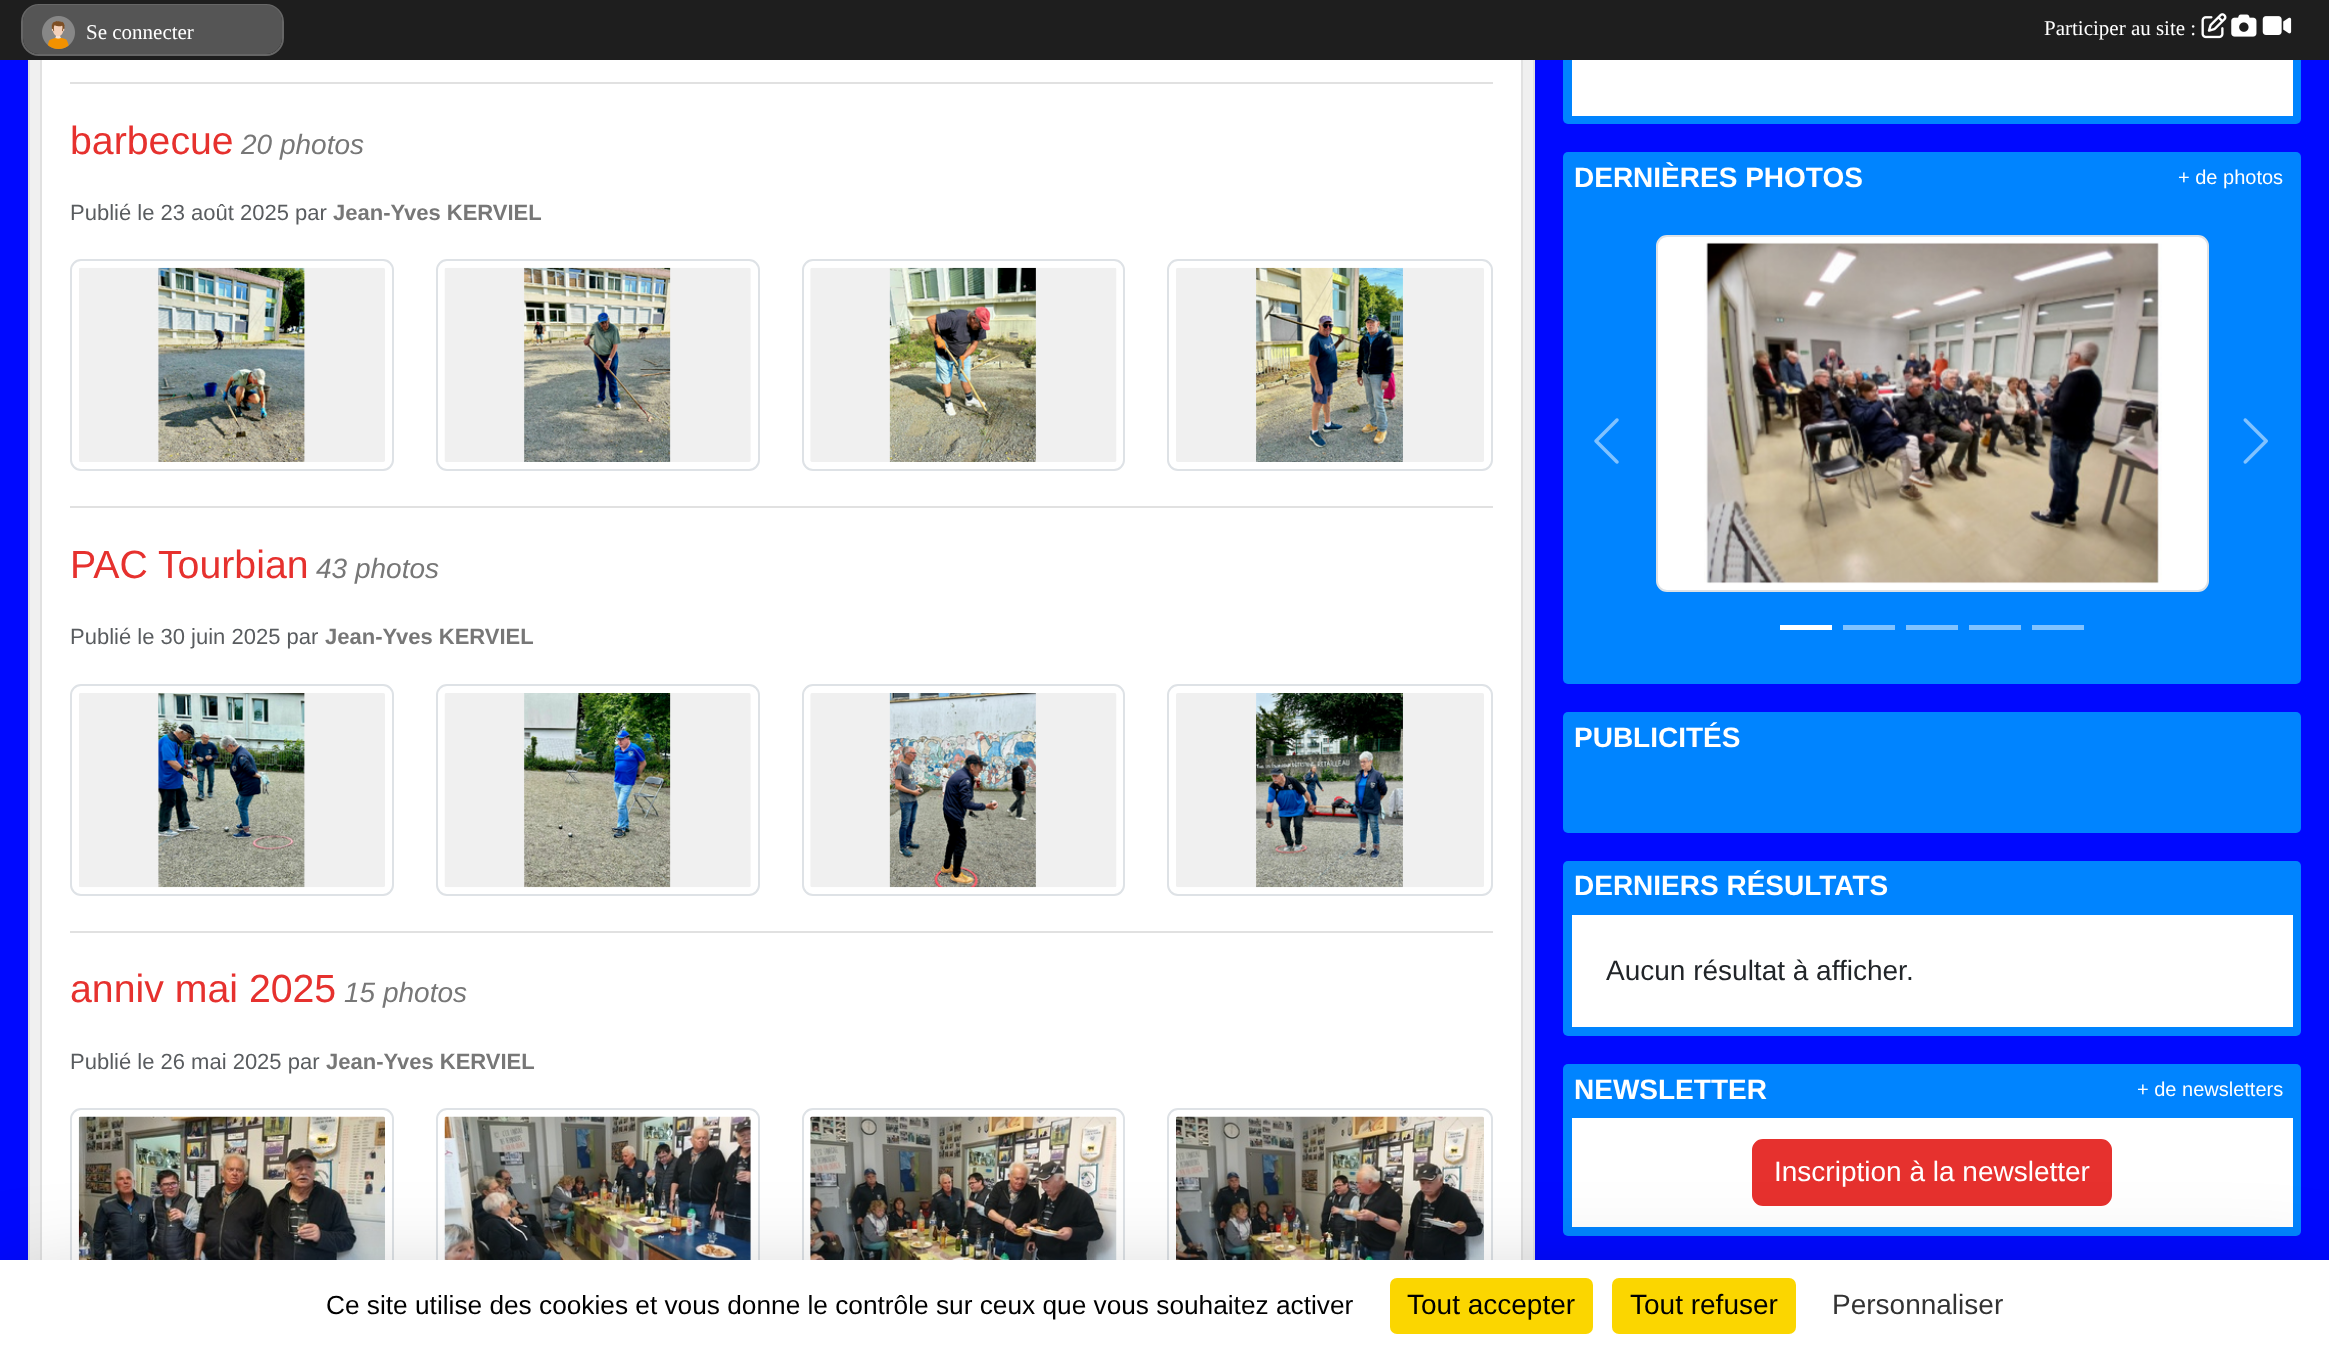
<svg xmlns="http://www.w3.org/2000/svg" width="2329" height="1350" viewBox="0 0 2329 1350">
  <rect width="100%" height="100%" fill="rgb(0,9,255)"/>
  <rect x="30" y="60" width="1503" height="1200" fill="rgb(240,240,240)"/>
  <rect x="29" y="-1" width="1505" height="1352" fill="none" stroke="rgb(225,225,225)" stroke-width="2"/>
  <rect x="42" y="60" width="1479" height="1200" fill="rgb(255,255,255)"/>
  <rect x="41" y="-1" width="1481" height="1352" fill="none" stroke="rgb(225,225,225)" stroke-width="2"/>
  <rect x="1563" y="-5" width="738" height="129" rx="5" fill="rgb(0,132,255)"/>
  <rect x="0" y="0" width="2329" height="60" fill="rgb(30,30,30)"/>
  <rect x="22" y="5" width="261" height="50" rx="17" fill="none" stroke="rgb(102,102,102)" stroke-width="2"/>
  <rect x="23" y="5" width="259" height="49" rx="16" fill="rgb(85,85,85)"/>
  <image x="42" y="16" width="33" height="33" href="pic1.png"/>
  <g font-family="Liberation Serif" font-size="21" fill="rgb(255,255,255)">
    <text x="86" y="39">Se connecter</text>
    <text x="2044" y="35">Participer au site :</text>
  </g>
  <image x="2201" y="13" width="26" height="26" href="pic2.png"/>
  <image x="2231" y="14" width="26" height="23" href="pic3.png"/>
  <image x="2262" y="16" width="30" height="19" href="pic4.png"/>
  <rect x="70" y="82" width="1423" height="2" fill="rgb(225,225,225)"/>
  <rect x="70" y="506" width="1423" height="2" fill="rgb(225,225,225)"/>
  <text x="70" y="154" font-family="Liberation Sans" font-size="39.25" fill="rgb(230,49,46)">barbecue</text>
  <text x="241" y="154" font-family="Liberation Sans" font-size="28" font-style="italic" fill="rgb(119,119,119)">20 photos</text>
  <text x="70" y="220" font-family="Liberation Sans" font-size="22" fill="rgb(89,92,95)">Publié le 23 août 2025 par</text>
  <text x="333" y="220" font-family="Liberation Sans" font-size="22" font-weight="bold" fill="rgb(119,119,119)">Jean-Yves KERVIEL</text>
  <rect x="71" y="260" width="322" height="210" rx="10" fill="none" stroke="rgb(222,226,230)" stroke-width="2"/>
  <image x="79" y="267" width="306" height="195" href="pic5.png"/>
  <rect x="437" y="260" width="322" height="210" rx="10" fill="none" stroke="rgb(222,226,230)" stroke-width="2"/>
  <image x="444" y="267" width="307" height="195" href="pic6.png"/>
  <rect x="803" y="260" width="321" height="210" rx="10" fill="none" stroke="rgb(222,226,230)" stroke-width="2"/>
  <image x="810" y="267" width="307" height="195" href="pic7.png"/>
  <rect x="1168" y="260" width="324" height="210" rx="10" fill="none" stroke="rgb(222,226,230)" stroke-width="2"/>
  <image x="1176" y="267" width="308" height="195" href="pic8.png"/>
  <rect x="70" y="931" width="1423" height="2" fill="rgb(225,225,225)"/>
  <text x="70" y="578" font-family="Liberation Sans" font-size="39.25" fill="rgb(230,49,46)">PAC Tourbian</text>
  <text x="316" y="578" font-family="Liberation Sans" font-size="28" font-style="italic" fill="rgb(119,119,119)">43 photos</text>
  <text x="70" y="644" font-family="Liberation Sans" font-size="22" fill="rgb(89,92,95)">Publié le 30 juin 2025 par</text>
  <text x="325" y="644" font-family="Liberation Sans" font-size="22" font-weight="bold" fill="rgb(119,119,119)">Jean-Yves KERVIEL</text>
  <rect x="71" y="685" width="322" height="210" rx="10" fill="none" stroke="rgb(222,226,230)" stroke-width="2"/>
  <image x="79" y="693" width="306" height="195" href="pic9.png"/>
  <rect x="437" y="685" width="322" height="210" rx="10" fill="none" stroke="rgb(222,226,230)" stroke-width="2"/>
  <image x="444" y="693" width="307" height="195" href="pic10.png"/>
  <rect x="803" y="685" width="321" height="210" rx="10" fill="none" stroke="rgb(222,226,230)" stroke-width="2"/>
  <image x="810" y="693" width="307" height="195" href="pic11.png"/>
  <rect x="1168" y="685" width="324" height="210" rx="10" fill="none" stroke="rgb(222,226,230)" stroke-width="2"/>
  <image x="1176" y="693" width="308" height="195" href="pic12.png"/>
  <text x="70" y="1002" font-family="Liberation Sans" font-size="39.25" fill="rgb(230,49,46)">anniv mai 2025</text>
  <text x="344" y="1002" font-family="Liberation Sans" font-size="28" font-style="italic" fill="rgb(119,119,119)">15 photos</text>
  <text x="70" y="1069" font-family="Liberation Sans" font-size="22" fill="rgb(89,92,95)">Publié le 26 mai 2025 par</text>
  <text x="326" y="1069" font-family="Liberation Sans" font-size="22" font-weight="bold" fill="rgb(119,119,119)">Jean-Yves KERVIEL</text>
  <rect x="71" y="1109" width="322" height="210" rx="10" fill="none" stroke="rgb(222,226,230)" stroke-width="2"/>
  <image x="78" y="1116" width="307" height="144" href="pic13.png"/>
  <rect x="437" y="1109" width="322" height="210" rx="10" fill="none" stroke="rgb(222,226,230)" stroke-width="2"/>
  <image x="444" y="1116" width="307" height="144" href="pic14.png"/>
  <rect x="803" y="1109" width="321" height="210" rx="10" fill="none" stroke="rgb(222,226,230)" stroke-width="2"/>
  <image x="810" y="1116" width="307" height="144" href="pic15.png"/>
  <rect x="1168" y="1109" width="324" height="210" rx="10" fill="none" stroke="rgb(222,226,230)" stroke-width="2"/>
  <image x="1176" y="1116" width="308" height="144" href="pic16.png"/>
  <rect x="1572" y="60" width="721" height="56" fill="rgb(255,255,255)"/>
  <rect x="1563" y="152" width="738" height="532" rx="5" fill="rgb(0,132,255)"/>
  <text x="1574" y="187" font-family="Liberation Sans" font-size="28" font-weight="bold" fill="rgb(255,255,255)">DERNIÈRES PHOTOS</text>
  <text x="2178" y="184" font-family="Liberation Sans" font-size="20" fill="rgb(255,255,255)">+ de photos</text>
  <image x="1594" y="418" width="25" height="46" href="pic17.png"/>
  <rect x="1657" y="236" width="551" height="355" rx="10" fill="rgb(255,255,255)" stroke="rgb(222,226,230)" stroke-width="2"/>
  <image x="1704" y="242" width="458" height="342" href="pic18.png"/>
  <image x="2243" y="418" width="25" height="46" href="pic19.png"/>
  <rect x="1780" y="625" width="52" height="5" fill="rgb(255,255,255)"/>
  <rect x="1843" y="625" width="52" height="5" fill="rgb(128,194,255)"/>
  <rect x="1906" y="625" width="52" height="5" fill="rgb(128,194,255)"/>
  <rect x="1969" y="625" width="52" height="5" fill="rgb(128,194,255)"/>
  <rect x="2032" y="625" width="52" height="5" fill="rgb(128,194,255)"/>
  <rect x="1563" y="712" width="738" height="121" rx="5" fill="rgb(0,132,255)"/>
  <text x="1574" y="747" font-family="Liberation Sans" font-size="28" font-weight="bold" fill="rgb(255,255,255)">PUBLICITÉS</text>
  <rect x="1563" y="861" width="738" height="175" rx="5" fill="rgb(0,132,255)"/>
  <text x="1574" y="895" font-family="Liberation Sans" font-size="28" font-weight="bold" fill="rgb(255,255,255)">DERNIERS RÉSULTATS</text>
  <rect x="1572" y="915" width="721" height="112" fill="rgb(255,255,255)"/>
  <text x="1606" y="980" font-family="Liberation Sans" font-size="28" fill="rgb(33,37,41)">Aucun résultat à afficher.</text>
  <rect x="1563" y="1064" width="738" height="172" rx="5" fill="rgb(0,132,255)"/>
  <text x="1574" y="1099" font-family="Liberation Sans" font-size="28" font-weight="bold" fill="rgb(255,255,255)">NEWSLETTER</text>
  <text x="2137" y="1096" font-family="Liberation Sans" font-size="20" fill="rgb(255,255,255)">+ de newsletters</text>
  <rect x="1572" y="1118" width="721" height="109" fill="rgb(255,255,255)"/>
  <rect x="1753" y="1140" width="358" height="65" rx="10" fill="rgb(230,49,46)" stroke="rgb(230,49,46)" stroke-width="2"/>
  <text x="1774" y="1181" font-family="Liberation Sans" font-size="28" fill="rgb(255,255,255)">Inscription à la newsletter</text>
  <rect x="0" y="1295" width="2329" height="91" fill="rgba(0,0,0,0.25)" filter="blur(52.5px)"/>
  <rect x="0" y="1260" width="2329" height="90" fill="rgb(255,255,255)"/>
  <text x="326" y="1314" font-family="Liberation Sans" font-size="26.25" fill="rgb(0,0,0)">Ce site utilise des cookies et vous donne le contrôle sur ceux que vous souhaitez activer</text>
  <rect x="1390" y="1278" width="203" height="56" rx="7" fill="rgb(251,214,0)"/>
  <text x="1407" y="1314" font-family="Liberation Sans" font-size="28" fill="rgb(0,0,0)">Tout accepter</text>
  <rect x="1612" y="1278" width="184" height="56" rx="7" fill="rgb(251,214,0)"/>
  <text x="1630" y="1314" font-family="Liberation Sans" font-size="28" fill="rgb(0,0,0)">Tout refuser</text>
  <text x="1832" y="1314" font-family="Liberation Sans" font-size="28" fill="rgb(51,51,51)">Personnaliser</text>
</svg>
